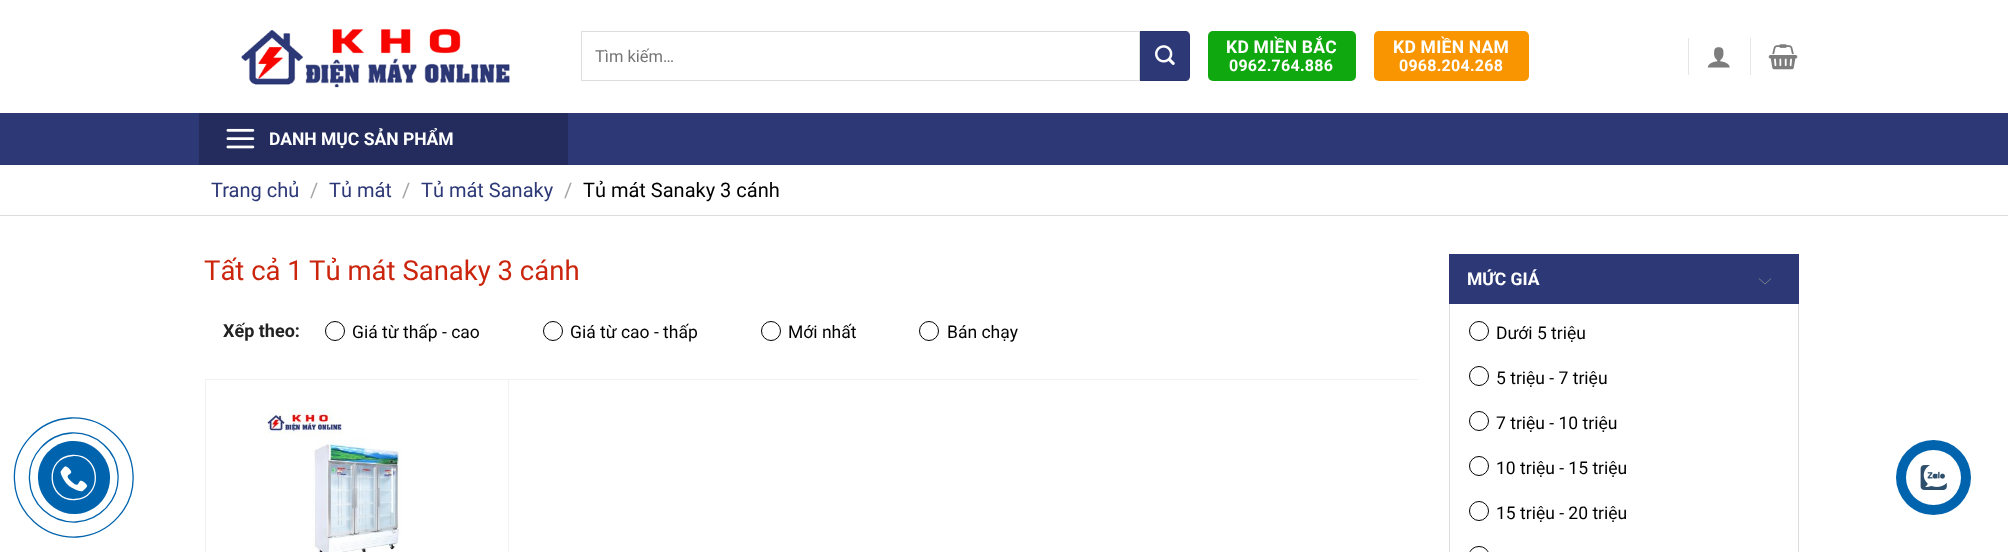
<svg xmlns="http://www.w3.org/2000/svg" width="2008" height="552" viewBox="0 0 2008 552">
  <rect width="100%" height="100%" fill="rgb(255,255,255)"/>
  <image x="241" y="28" width="269" height="60" href="pic1.png"/>
  <rect x="581.5" y="31.5" width="558" height="49" fill="none" stroke="rgb(221,221,221)"/>
  <text x="595" y="62" font-family="Roboto" font-size="16.5" fill="rgb(117,117,117)">Tìm kiếm…</text>
  <path d="M1140 31H1185C1188 31 1190 33 1190 36V76C1190 79 1188 81 1185 81H1140Z" fill="rgb(45,56,119)"/>
  <rect x="1140.5" y="31.5" width="49" height="49" fill="none" stroke="rgba(0,0,0,0.05)"/>
  <image x="1155" y="45" width="20" height="20" href="pic2.png"/>
  <rect x="1208" y="31" width="148" height="50" rx="5" fill="rgb(15,168,15)"/>
  <text x="1226" y="53" font-family="Roboto" font-size="17.5" font-weight="bold" letter-spacing="0.25" fill="rgb(255,255,255)">KD MIỀN BẮC</text>
  <text x="1229" y="71" font-family="Roboto" font-size="16" font-weight="bold" letter-spacing="0.25" fill="rgb(255,255,255)">0962.764.886</text>
  <rect x="1374" y="31" width="155" height="50" rx="5" fill="rgb(248,149,0)"/>
  <text x="1393" y="53" font-family="Roboto" font-size="17.5" font-weight="bold" letter-spacing="0.25" fill="rgb(255,255,255)">KD MIỀN NAM</text>
  <text x="1399" y="71" font-family="Roboto" font-size="16" font-weight="bold" letter-spacing="0.25" fill="rgb(255,255,255)">0968.204.268</text>
  <rect x="1688" y="38" width="1" height="37" fill="rgb(230,230,230)"/>
  <image x="1707" y="47" width="23" height="21" href="pic3.png"/>
  <rect x="1750" y="38" width="1" height="37" fill="rgb(230,230,230)"/>
  <image x="1768" y="44" width="30" height="26" href="pic4.png"/>
  <rect x="0" y="113" width="2008" height="52" fill="rgb(45,56,119)"/>
  <rect x="199" y="113" width="369" height="52" fill="rgb(35,44,92)"/>
  <image x="226" y="128" width="29" height="21" href="pic5.png"/>
  <text x="269" y="145" font-family="Roboto" font-size="17.5" font-weight="bold" fill="rgb(255,255,255)">DANH MỤC SẢN PHẨM</text>
  <rect x="0" y="215" width="2008" height="1" fill="rgb(221,221,221)"/>
  <text x="211" y="197" font-family="Roboto" font-size="20" fill="rgb(45,56,119)">Trang chủ</text>
  <text x="310" y="197" font-family="Roboto" font-size="20" fill="rgb(166,166,166)">/</text>
  <text x="329" y="197" font-family="Roboto" font-size="20" fill="rgb(45,56,119)">Tủ mát</text>
  <text x="402" y="197" font-family="Roboto" font-size="20" fill="rgb(166,166,166)">/</text>
  <text x="421" y="197" font-family="Roboto" font-size="20" fill="rgb(45,56,119)">Tủ mát Sanaky</text>
  <text x="564" y="197" font-family="Roboto" font-size="20" fill="rgb(166,166,166)">/</text>
  <text x="583" y="197" font-family="Roboto" font-size="20" fill="rgb(0,0,0)">Tủ mát Sanaky 3 cánh</text>
  <path d="M72 441C92 440 109 456 110 476C111 496 96 513 76 514C56 515 39 499 38 479C37 459 52 442 72 441Z" fill="rgb(0,99,174)"/>
  <path d="M71.5 433C96 432 117 450.5 118 475C119.5 499.5 100.5 520.5 76 522C51.5 523 30.5 504.5 29.5 480C28 455.5 47 434.5 71.5 433Z" fill="none" stroke="rgb(0,99,174)" stroke-width="1.3"/>
  <image x="60" y="466" width="28" height="26" href="pic6.png"/>
  <path d="M70.5 418C103.5 416.5 131.5 441.5 133 474.5C135 507 109.5 535 77 537C44 538.5 16 513.5 14.5 480.5C12.5 448 38 420 70.5 418Z" fill="none" stroke="rgb(0,99,174)" stroke-width="1.3"/>
  <path d="M72.5 455.5C101.5 454 103.5 498 75 499.5C46 501 44 457 72.5 455.5Z" fill="none" stroke="rgb(255,255,255)" stroke-width="1.3"/>
  <text x="204" y="280" font-family="Roboto" font-size="27.5" fill="rgb(203,37,14)">Tất cả 1 Tủ mát Sanaky 3 cánh</text>
  <text x="223" y="337" font-family="Roboto" font-size="18" font-weight="bold" fill="rgb(34,34,34)">Xếp theo:</text>
  <circle cx="335" cy="331" r="9.5" fill="none" stroke="rgb(0,0,0)"/>
  <text x="352" y="338" font-family="Roboto" font-size="17.5" fill="rgb(0,0,0)">Giá từ thấp - cao</text>
  <circle cx="553" cy="331" r="9.5" fill="none" stroke="rgb(0,0,0)"/>
  <text x="570" y="338" font-family="Roboto" font-size="17.5" fill="rgb(0,0,0)">Giá từ cao - thấp</text>
  <circle cx="771" cy="331" r="9.5" fill="none" stroke="rgb(0,0,0)"/>
  <text x="788" y="338" font-family="Roboto" font-size="17.5" fill="rgb(0,0,0)">Mới nhất</text>
  <circle cx="929" cy="331" r="9.5" fill="none" stroke="rgb(0,0,0)"/>
  <text x="947" y="338" font-family="Roboto" font-size="17.5" fill="rgb(0,0,0)">Bán chạy</text>
  <rect x="205" y="379" width="1213" height="1" fill="rgb(241,241,241)"/>
  <rect x="205" y="379" width="1" height="173" fill="rgb(241,241,241)"/>
  <rect x="508" y="380" width="1" height="172" fill="rgb(241,241,241)"/>
  <image x="262" y="408" width="140" height="144" href="pic7.png"/>
  <rect x="1449" y="254" width="350" height="50" fill="rgb(45,56,119)"/>
  <text x="1467" y="285" font-family="Roboto" font-size="17.5" font-weight="bold" fill="rgb(255,255,255)">MỨC GIÁ</text>
  <path d="M1759 278.5L1765 284L1771 278.5" fill="none" stroke="rgb(143,143,143)" stroke-width="0.8"/>
  <rect x="1798" y="304" width="1" height="248" fill="rgb(221,221,221)"/>
  <rect x="1449" y="304" width="1" height="248" fill="rgb(221,221,221)"/>
  <circle cx="1479" cy="331" r="9.5" fill="none" stroke="rgb(0,0,0)"/>
  <text x="1496" y="339" font-family="Roboto" font-size="17.5" fill="rgb(0,0,0)">Dưới 5 triệu</text>
  <circle cx="1479" cy="376" r="9.5" fill="none" stroke="rgb(0,0,0)"/>
  <text x="1496" y="384" font-family="Roboto" font-size="17.5" fill="rgb(0,0,0)">5 triệu - 7 triệu</text>
  <circle cx="1479" cy="421" r="9.5" fill="none" stroke="rgb(0,0,0)"/>
  <text x="1496" y="429" font-family="Roboto" font-size="17.5" fill="rgb(0,0,0)">7 triệu - 10 triệu</text>
  <circle cx="1479" cy="466" r="9.5" fill="none" stroke="rgb(0,0,0)"/>
  <text x="1496" y="474" font-family="Roboto" font-size="17.5" fill="rgb(0,0,0)">10 triệu - 15 triệu</text>
  <circle cx="1479" cy="511" r="9.5" fill="none" stroke="rgb(0,0,0)"/>
  <text x="1496" y="519" font-family="Roboto" font-size="17.5" fill="rgb(0,0,0)">15 triệu - 20 triệu</text>
  <rect x="1469.5" y="546.5" width="19" height="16" rx="9.5" fill="none" stroke="rgb(0,0,0)"/>
  <circle cx="1933.5" cy="477.5" r="37.5" fill="rgb(0,99,174)"/>
  <circle cx="1933.5" cy="477.5" r="27.5" fill="rgb(255,255,255)"/>
  <image x="1920" y="465" width="27" height="25" href="pic8.png"/>
</svg>
